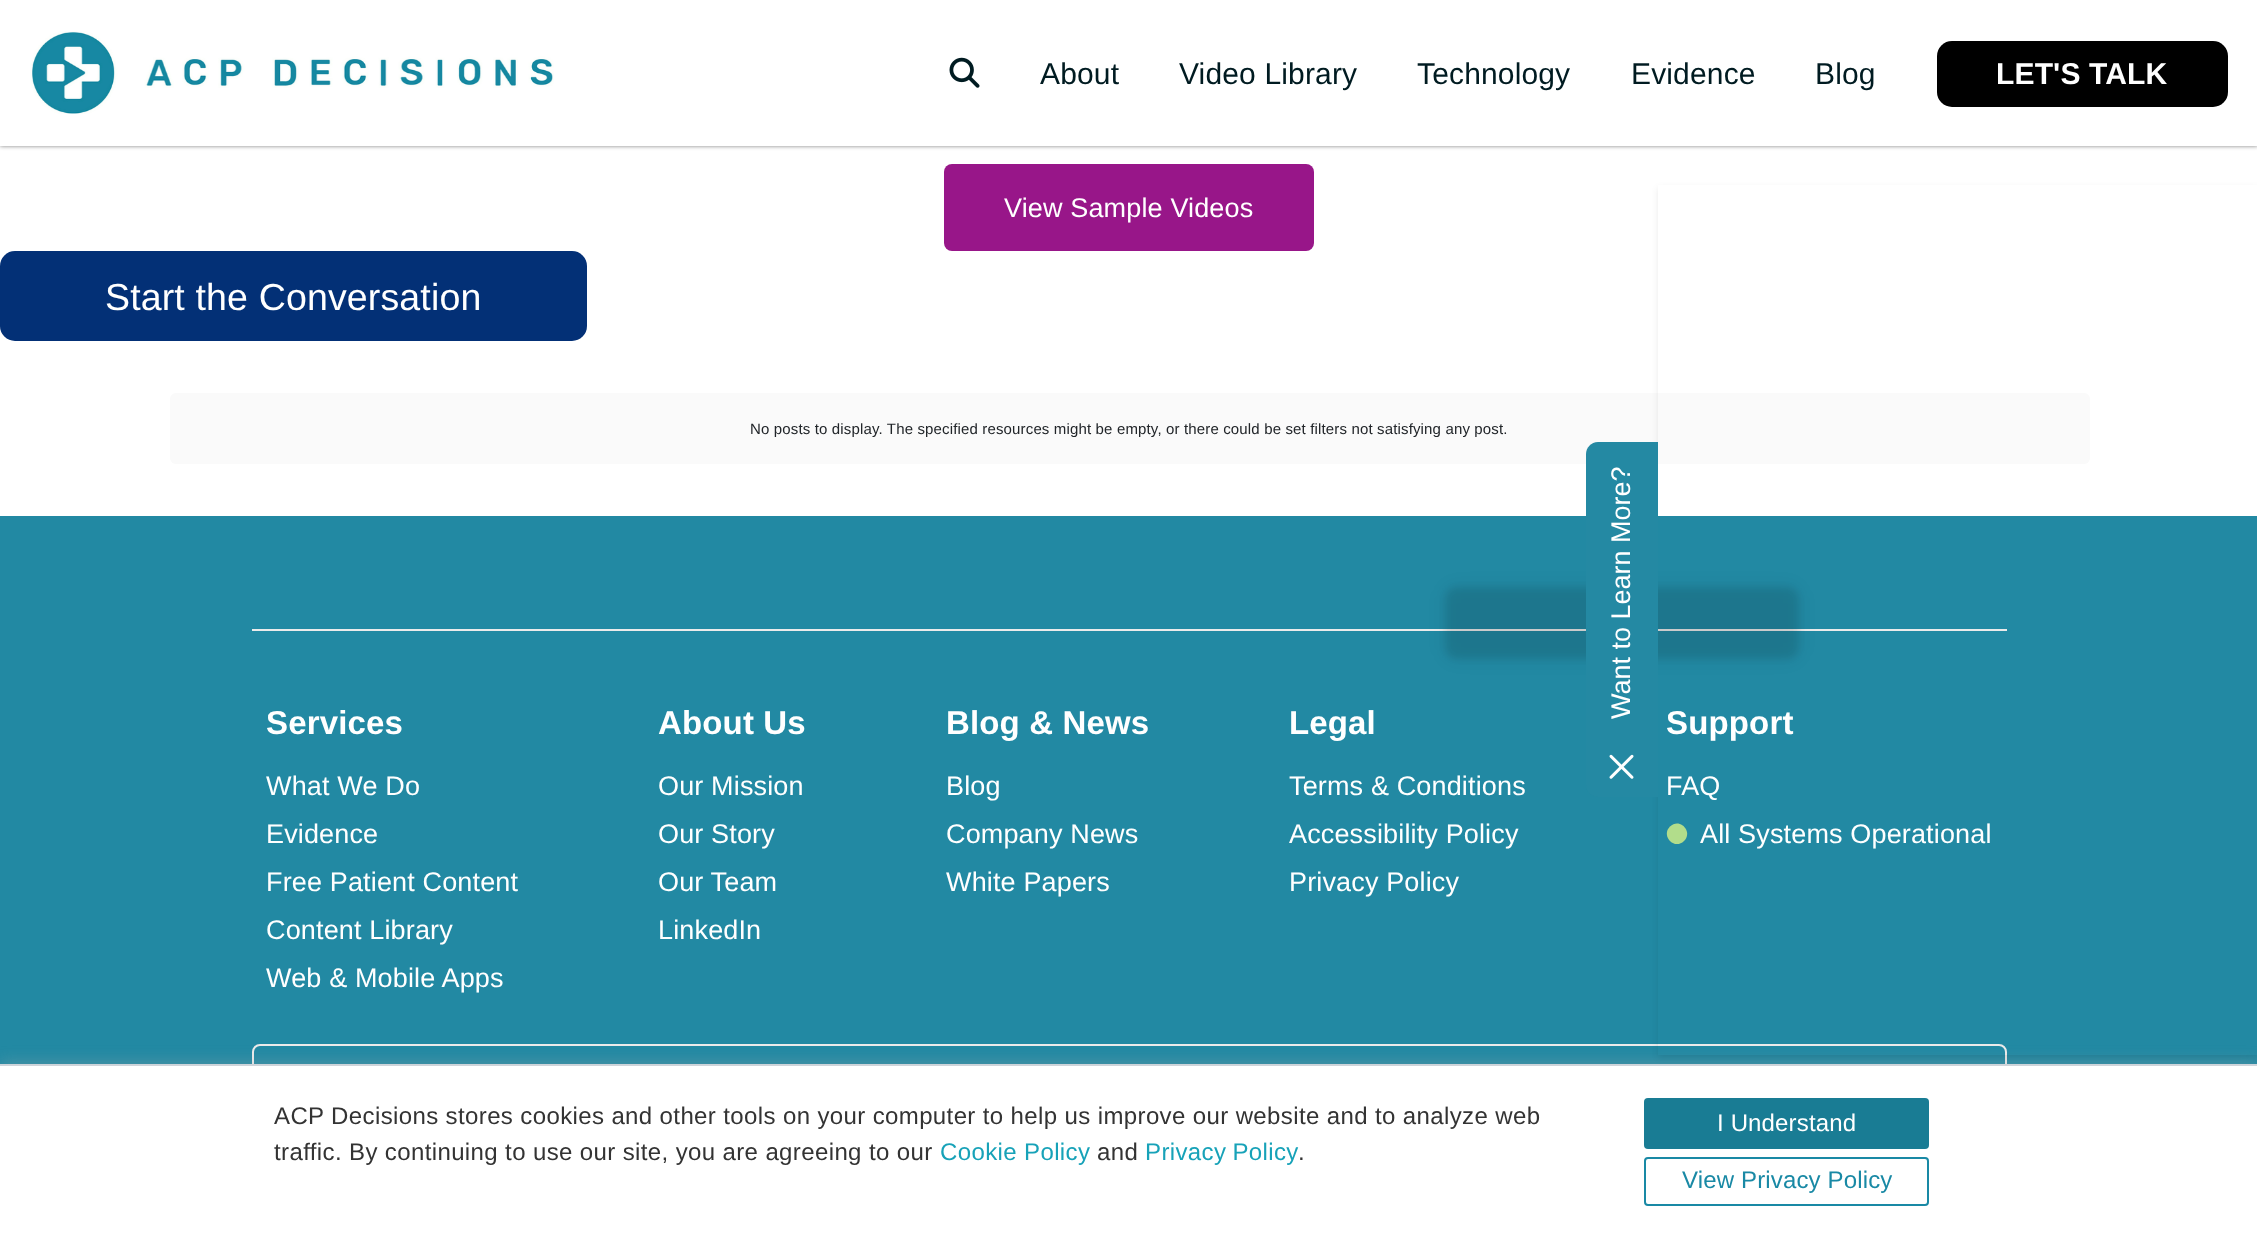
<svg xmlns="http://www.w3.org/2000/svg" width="2257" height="1239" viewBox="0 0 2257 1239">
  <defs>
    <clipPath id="clip1"><path d="M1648 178H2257V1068H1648ZM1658 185H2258V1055H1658Z" clip-rule="evenodd"/></clipPath>
  </defs>
  <rect width="100%" height="100%" fill="rgb(255,255,255)"/>
  <rect x="0" y="0" width="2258" height="146" fill="rgba(0,0,0,0.5)" filter="blur(2px)"/>
  <rect x="0" y="0" width="2257" height="146" fill="rgb(255,255,255)"/>
  <image x="30" y="31" width="524" height="83" href="pic1.png"/>
  <image x="949" y="57" width="31" height="31" href="pic2.png"/>
  <g font-family="Liberation Sans" font-size="30" letter-spacing="0.15" fill="rgb(0,27,33)">
    <text x="1040" y="84">About</text>
    <text x="1179" y="84">Video Library</text>
    <text x="1417" y="84">Technology</text>
    <text x="1631" y="84">Evidence</text>
    <text x="1815" y="84">Blog</text>
  </g>
  <rect x="1937" y="41" width="291" height="66" rx="15" fill="rgb(0,0,0)"/>
  <text x="1996" y="84" font-family="Liberation Sans" font-size="30" font-weight="bold" letter-spacing="0.15" fill="rgb(255,255,255)">LET'S TALK</text>
  <rect x="944" y="164" width="370" height="87" rx="8" fill="rgb(152,22,137)"/>
  <text x="1004" y="217" font-family="Liberation Sans" font-size="27" letter-spacing="0.15" fill="rgb(255,255,255)">View Sample Videos</text>
  <rect x="0" y="251" width="587" height="90" rx="15" fill="rgb(3,48,118)"/>
  <text x="105" y="310" font-family="Liberation Sans" font-size="37.5" letter-spacing="0.15" fill="rgb(255,255,255)">Start the Conversation</text>
  <rect x="170" y="393" width="1920" height="71" rx="6" fill="rgb(250,250,250)"/>
  <text x="750" y="434" font-family="Liberation Sans" font-size="15" letter-spacing="0.15" fill="rgb(33,37,41)">No posts to display. The specified resources might be empty, or there could be set filters not satisfying any post.</text>
  <rect x="0" y="516" width="2257" height="548" fill="rgb(34,137,163)"/>
  <rect x="252" y="629" width="1755" height="2" fill="rgb(235,235,235)"/>
  <text x="266" y="734" font-family="Liberation Sans" font-size="33" font-weight="bold" letter-spacing="0.15" fill="rgb(255,255,255)">Services</text>
  <g font-family="Liberation Sans" font-size="27" letter-spacing="0.15" fill="rgb(255,255,255)">
    <text>
      <tspan x="266" y="795">What We Do</tspan>
      <tspan x="266" y="843">Evidence</tspan>
      <tspan x="266" y="891">Free Patient Content</tspan>
      <tspan x="266" y="939">Content Library</tspan>
      <tspan x="266" y="987">Web &amp; Mobile Apps</tspan>
    </text>
  </g>
  <text x="658" y="734" font-family="Liberation Sans" font-size="33" font-weight="bold" letter-spacing="0.15" fill="rgb(255,255,255)">About Us</text>
  <g font-family="Liberation Sans" font-size="27" letter-spacing="0.15" fill="rgb(255,255,255)">
    <text>
      <tspan x="658" y="795">Our Mission</tspan>
      <tspan x="658" y="843">Our Story</tspan>
      <tspan x="658" y="891">Our Team</tspan>
      <tspan x="658" y="939">LinkedIn</tspan>
    </text>
  </g>
  <text x="946" y="734" font-family="Liberation Sans" font-size="33" font-weight="bold" letter-spacing="0.15" fill="rgb(255,255,255)">Blog &amp; News</text>
  <g font-family="Liberation Sans" font-size="27" letter-spacing="0.15" fill="rgb(255,255,255)">
    <text>
      <tspan x="946" y="795">Blog</tspan>
      <tspan x="946" y="843">Company News</tspan>
      <tspan x="946" y="891">White Papers</tspan>
    </text>
  </g>
  <text x="1289" y="734" font-family="Liberation Sans" font-size="33" font-weight="bold" letter-spacing="0.15" fill="rgb(255,255,255)">Legal</text>
  <g font-family="Liberation Sans" font-size="27" letter-spacing="0.15" fill="rgb(255,255,255)">
    <text>
      <tspan x="1289" y="795">Terms &amp; Conditions</tspan>
      <tspan x="1289" y="843">Accessibility Policy</tspan>
      <tspan x="1289" y="891">Privacy Policy</tspan>
    </text>
  </g>
  <text x="1666" y="734" font-family="Liberation Sans" font-size="33" font-weight="bold" letter-spacing="0.15" fill="rgb(255,255,255)">Support</text>
  <text x="1666" y="795" font-family="Liberation Sans" font-size="27" letter-spacing="0.15" fill="rgb(255,255,255)">FAQ</text>
  <path d="M1670 826.5C1679.5 817 1693.5 831.5 1684 841C1674.5 850.5 1660.5 836 1670 826.5Z" fill="rgb(178,221,139)"/>
  <text x="1700" y="843" font-family="Liberation Sans" font-size="27" letter-spacing="0.15" fill="rgb(255,255,255)">All Systems Operational</text>
  <rect x="253" y="1045" width="1753" height="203" rx="7" fill="none" stroke="rgb(235,235,235)" stroke-width="2"/>
  <rect x="0" y="1062" width="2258" height="176" fill="rgba(172,171,171,0.3)" filter="blur(7.5px)"/>
  <rect x="0" y="1066" width="2257" height="173" fill="rgb(255,255,255)"/>
  <rect x="0" y="1064" width="2257" height="2" fill="rgb(206,212,218)"/>
  <g clip-path="url(#clip1)">
    <rect x="1658" y="188" width="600" height="870" fill="rgba(0,0,0,0.08)" filter="blur(3px)"/>
  </g>
  <rect x="1445" y="587" width="354" height="72" rx="12" fill="rgba(0,0,0,0.06)" filter="blur(9px)"/>
  <rect x="1445" y="587" width="354" height="72" rx="12" fill="rgba(0,0,0,0.08)" filter="blur(3px)"/>
  <path d="M1586 785V454C1586 448 1591 442 1598 442H1658V797H1598C1591 797 1586 791 1586 785Z" fill="rgb(36,137,163)"/>
  <text x="1630" y="719" transform="rotate(-90 1630 719)" font-family="Liberation Sans" font-size="27" fill="rgb(255,255,255)">Want to Learn More?</text>
  <image x="1609" y="754" width="25" height="25" href="pic3.png"/>
  <g font-family="Liberation Sans" font-size="24" letter-spacing="0.38" fill="rgb(51,51,51)">
    <text>
      <tspan x="274" y="1124">ACP Decisions stores cookies and other tools on your computer to help us improve our website and to analyze web</tspan>
      <tspan x="274" y="1160">traffic. By continuing to use our site, you are agreeing to our</tspan>
    </text>
  </g>
  <text x="940" y="1160" font-family="Liberation Sans" font-size="24" letter-spacing="0.38" fill="rgb(23,162,184)">Cookie Policy</text>
  <text x="1097" y="1160" font-family="Liberation Sans" font-size="24" letter-spacing="0.38" fill="rgb(51,51,51)">and</text>
  <text x="1145" y="1160" word-spacing="-1" font-family="Liberation Sans" font-size="24" letter-spacing="0.38" fill="rgb(23,162,184)">Privacy Policy</text>
  <text x="1298" y="1160" font-family="Liberation Sans" font-size="24" letter-spacing="0.38" fill="rgb(51,51,51)">.</text>
  <rect x="1644" y="1098" width="285" height="51" rx="4" fill="rgb(25,124,148)"/>
  <text x="1717" y="1131" font-family="Liberation Sans" font-size="24" letter-spacing="0.15" fill="rgb(255,255,255)">I Understand</text>
  <rect x="1645" y="1158" width="283" height="47" rx="3" fill="none" stroke="rgb(25,137,165)" stroke-width="2"/>
  <text x="1682" y="1188" font-family="Liberation Sans" font-size="24" letter-spacing="0.15" fill="rgb(25,137,165)">View Privacy Policy</text>
</svg>
